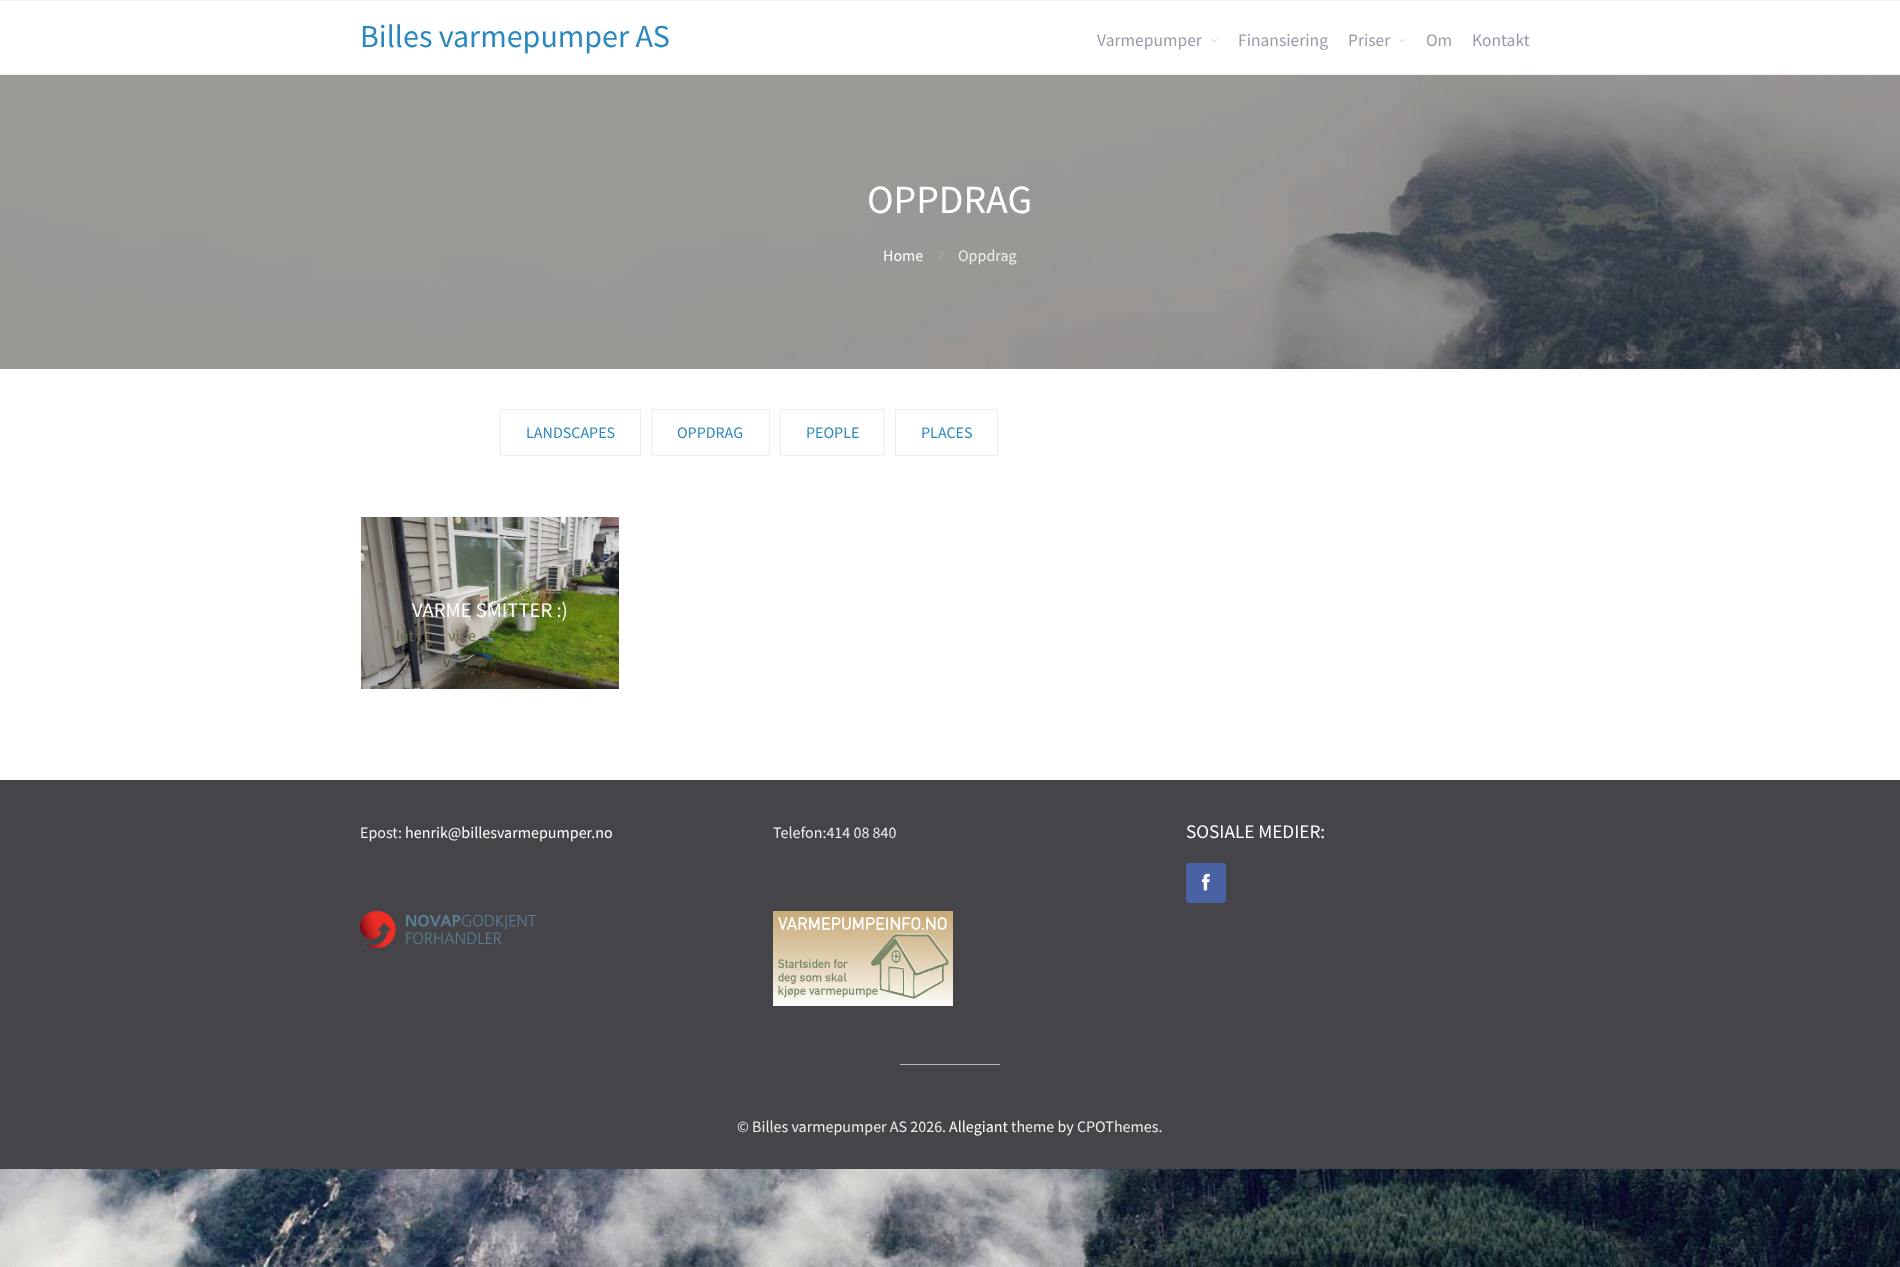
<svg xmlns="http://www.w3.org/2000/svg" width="1900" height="1267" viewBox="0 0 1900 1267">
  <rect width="100%" height="100%" fill="rgb(255,255,255)"/>
  <image x="0" y="75" width="1900" height="1192" href="pic1.png"/>
  <rect x="0" y="0" width="1900" height="1" fill="rgb(240,240,240)"/>
  <rect x="0" y="74" width="1900" height="1" fill="rgb(240,240,240)"/>
  <text x="360" y="47" font-family="Source Sans Pro" font-size="32" fill="rgb(42,136,191)">Billes varmepumper AS</text>
  <text x="1097" y="46" font-family="Source Sans Pro" font-size="17.5" fill="rgb(153,153,170)">Varmepumper</text>
  <image x="1211" y="39" width="6" height="4" href="pic2.png"/>
  <g font-family="Source Sans Pro" font-size="17.5" fill="rgb(153,153,170)">
    <text x="1238" y="46">Finansiering</text>
    <text x="1348" y="46">Priser</text>
  </g>
  <image x="1399" y="39" width="6" height="4" href="pic2.png"/>
  <g font-family="Source Sans Pro" font-size="17.5" fill="rgb(153,153,170)">
    <text x="1426" y="46">Om</text>
    <text x="1472" y="46">Kontakt</text>
  </g>
  <rect x="0" y="75" width="1900" height="294" fill="rgba(0,0,0,0.4)"/>
  <text x="867" y="213" font-family="Source Sans Pro" font-size="40" fill="rgb(255,255,255)">OPPDRAG</text>
  <text x="883" y="261" font-family="Source Sans Pro" font-size="16" fill="rgb(255,255,255)">Home</text>
  <text x="940" y="259" font-family="Liberation Serif" font-size="12" font-weight="bold" fill="rgb(186,187,185)">/</text>
  <text x="958" y="261" font-family="Source Sans Pro" font-size="16" fill="rgb(238,238,238)">Oppdrag</text>
  <rect x="0" y="369" width="1900" height="411" fill="rgb(255,255,255)"/>
  <rect x="500.5" y="409.5" width="140" height="46" fill="none" stroke="rgb(238,238,238)"/>
  <text x="526" y="438" font-family="Source Sans Pro" font-size="16" fill="rgb(42,136,191)">LANDSCAPES</text>
  <rect x="651.5" y="409.5" width="118" height="46" fill="none" stroke="rgb(238,238,238)"/>
  <text x="677" y="438" font-family="Source Sans Pro" font-size="16" fill="rgb(42,136,191)">OPPDRAG</text>
  <rect x="780.5" y="409.5" width="104" height="46" fill="none" stroke="rgb(238,238,238)"/>
  <text x="806" y="438" font-family="Source Sans Pro" font-size="16" fill="rgb(42,136,191)">PEOPLE</text>
  <rect x="895.5" y="409.5" width="102" height="46" fill="none" stroke="rgb(238,238,238)"/>
  <text x="921" y="438" font-family="Source Sans Pro" font-size="16" fill="rgb(42,136,191)">PLACES</text>
  <image x="361" y="517" width="258" height="172" href="pic3.png"/>
  <text x="412" y="617" font-family="Source Sans Pro" font-size="20.75" fill="rgb(255,255,255)">VARME SMITTER :)</text>
  <g font-family="Source Sans Pro" font-size="16" fill="rgb(100,112,66)">
    <text x="396" y="641">lut</text>
    <text x="448" y="641">vi</text>
    <text x="468" y="641">e</text>
  </g>
  <text x="443" y="667" font-family="Source Sans Pro" font-size="16" fill="rgb(80,82,51)">v</text>
  <rect x="0" y="780" width="1900" height="389" fill="rgb(68,68,73)"/>
  <text x="360" y="838" font-family="Source Sans Pro" font-size="16" fill="rgb(238,238,238)">Epost:</text>
  <text x="405" y="838" font-family="Source Sans Pro" font-size="16" fill="rgb(255,255,255)">henrik@billesvarmepumper.no</text>
  <image x="360" y="911" width="176" height="37" href="pic4.png"/>
  <text x="773" y="838" font-family="Source Sans Pro" font-size="16" fill="rgb(238,238,238)">Telefon:414 08 840</text>
  <image x="773" y="911" width="180" height="95" href="pic5.png"/>
  <text x="1186" y="838" font-family="Source Sans Pro" font-size="19.25" fill="rgb(255,255,255)">SOSIALE MEDIER:</text>
  <rect x="1186" y="863" width="40" height="40" rx="3" fill="rgb(72,98,163)"/>
  <image x="1202" y="873" width="8" height="18" href="pic6.png"/>
  <rect x="900" y="1064" width="100" height="1" fill="rgb(187,187,187)"/>
  <text x="737" y="1132" font-family="Source Sans Pro" font-size="16" fill="rgb(238,238,238)">© Billes varmepumper AS 2026.</text>
  <text x="949" y="1132" font-family="Source Sans Pro" font-size="16" fill="rgb(255,255,255)">Allegiant</text>
  <text x="1011" y="1132" font-family="Source Sans Pro" font-size="16" fill="rgb(238,238,238)">theme by CPOThemes.</text>
</svg>
